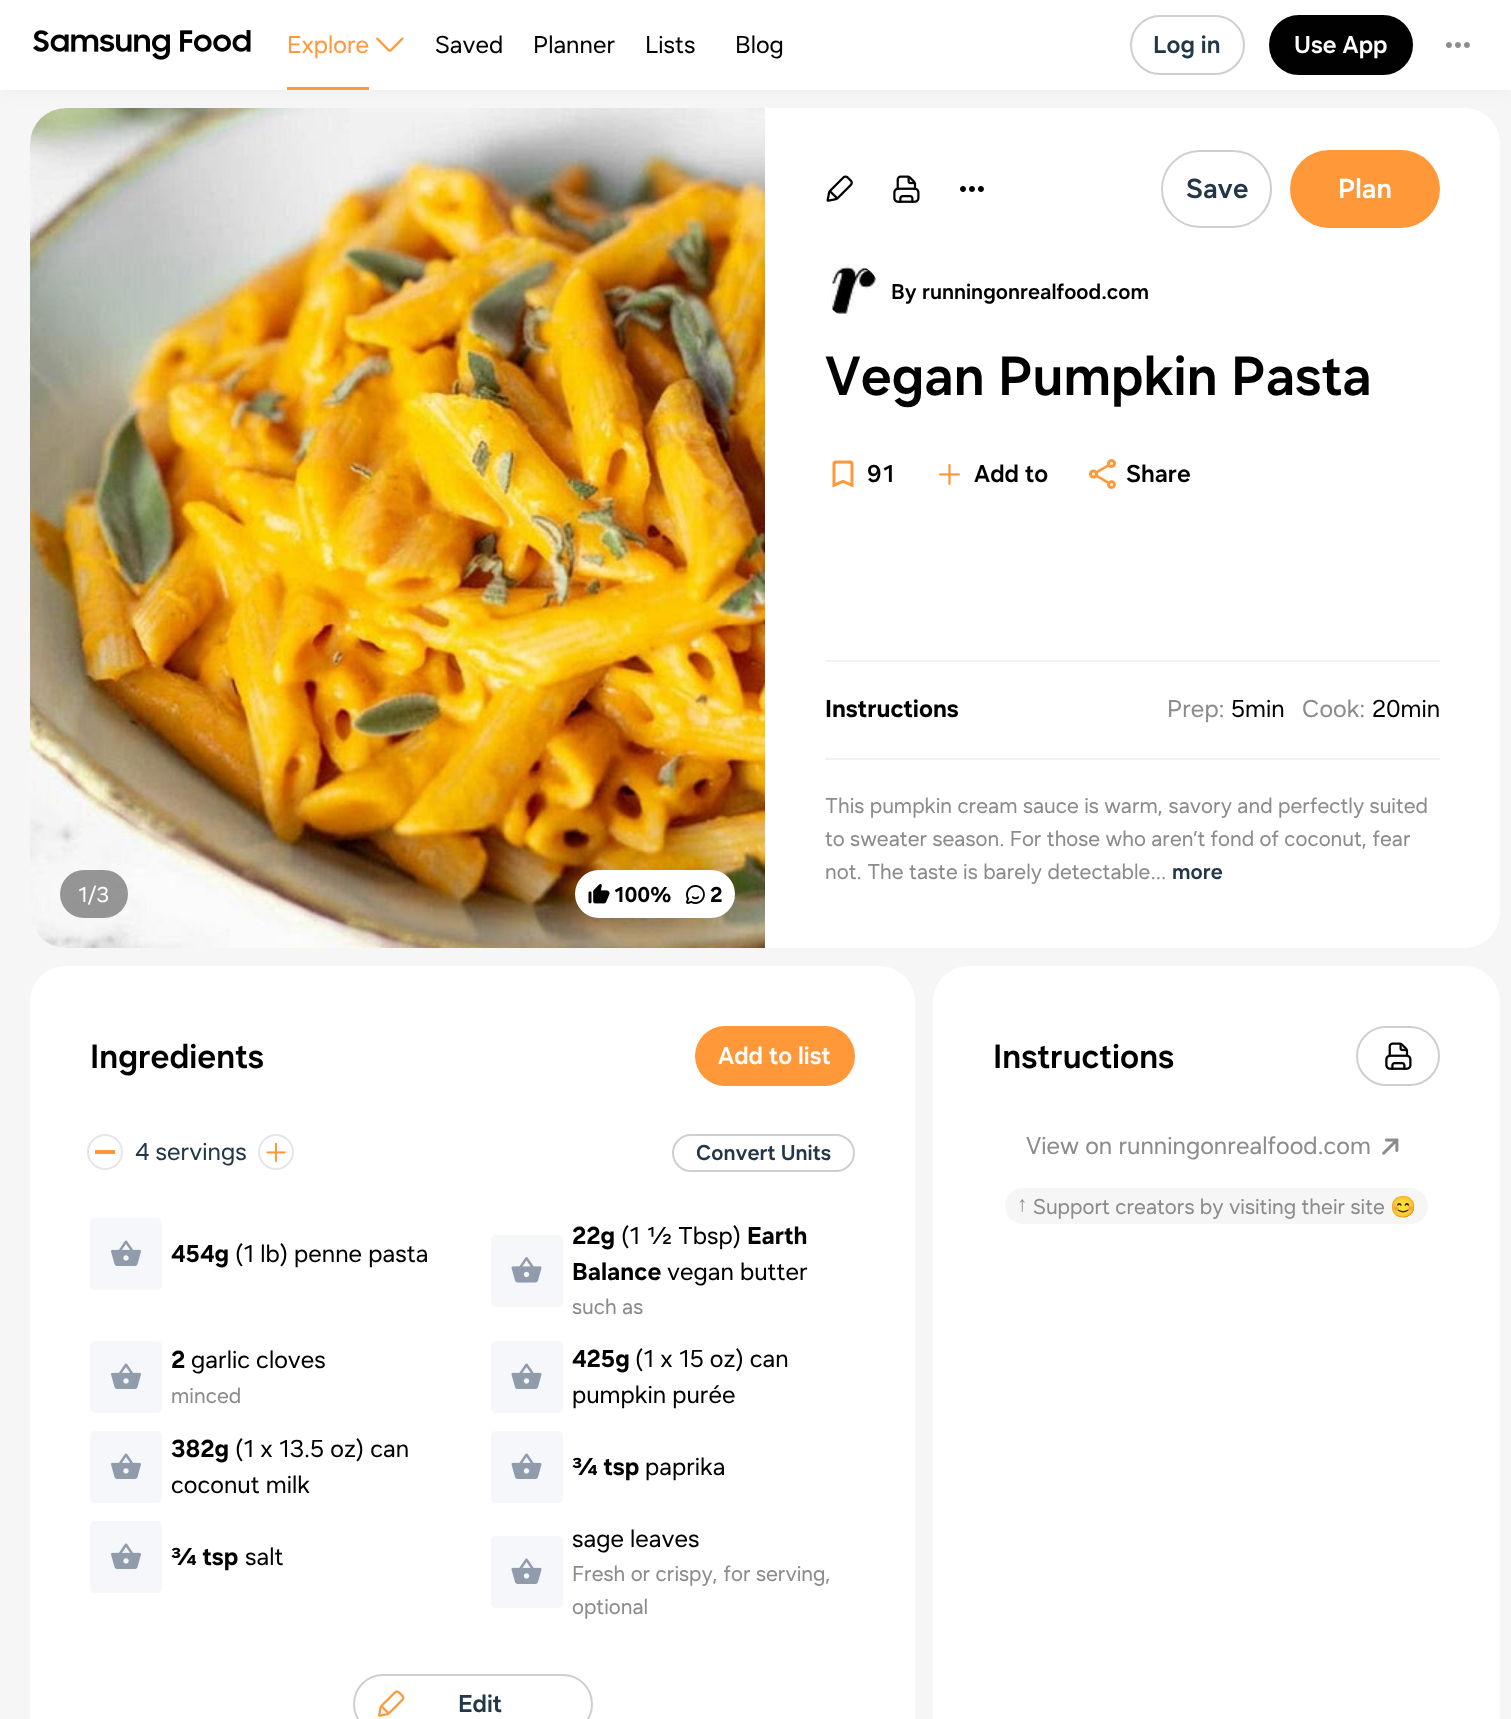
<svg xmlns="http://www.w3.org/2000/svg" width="1511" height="1719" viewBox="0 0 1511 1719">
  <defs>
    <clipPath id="clip1"><rect x="287" y="0" width="82" height="90"/></clipPath>
  </defs>
  <rect width="100%" height="100%" fill="rgb(246,246,246)"/>
  <path d="M765 108H1464C1484 108 1500 124 1500 144V912C1500 932 1484 948 1464 948H765Z" fill="rgb(255,255,255)"/>
  <path d="M66 108H765V948H66C46 948 30 932 30 912V144C30 124 46 108 66 108Z" fill="rgb(255,255,255)"/>
  <image x="30" y="108" width="735" height="840" href="pic11.png"/>
  <rect x="0" y="0" width="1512" height="90" fill="rgba(79,79,106,0.06)" filter="blur(9px)"/>
  <rect x="0" y="0" width="1511" height="90" fill="rgb(255,255,255)"/>
  <image x="33" y="30" width="218" height="30" href="pic1.png"/>
  <g clip-path="url(#clip1)">
    <path d="M138-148H518V238H138ZM286-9H369C371-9 372-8 372-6V84C372 86 371 87 369 87H286C285 87 284 86 284 84V-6C284-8 285-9 286-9Z" fill="rgb(255,152,56)" fill-rule="evenodd"/>
  </g>
  <text x="287" y="53" font-family="'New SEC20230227'" font-size="24" fill="rgb(255,152,56)">Explore</text>
  <image x="376" y="37" width="28" height="15" href="pic2.png"/>
  <g font-family="'New SEC20230227'" font-size="24" fill="rgb(1,1,1)">
    <text x="435" y="53">Saved</text>
    <text x="533" y="53">Planner</text>
    <text x="645" y="53">Lists</text>
    <text x="735" y="53">Blog</text>
  </g>
  <rect x="1131" y="16" width="113" height="58" rx="29" fill="none" stroke="rgb(207,207,207)" stroke-width="2"/>
  <text x="1153" y="53" font-family="'New SEC20230227'" font-size="24" font-weight="600" fill="rgb(35,55,72)">Log in</text>
  <rect x="1270" y="16" width="142" height="58" rx="29" fill="rgb(1,1,1)" stroke="rgb(1,1,1)" stroke-width="2"/>
  <text x="1294" y="53" font-family="'New SEC20230227'" font-size="24" font-weight="600" fill="rgb(255,255,255)">Use App</text>
  <image x="1446" y="42" width="24" height="6" href="pic3.png"/>
  <image x="826" y="175" width="27" height="27" href="pic4.png"/>
  <image x="893" y="175" width="27" height="28" href="pic5.png"/>
  <image x="960" y="186" width="24" height="6" href="pic6.png"/>
  <rect x="1162" y="151" width="109" height="76" rx="38" fill="none" stroke="rgb(207,207,207)" stroke-width="2"/>
  <text x="1186" y="198" font-family="'New SEC20230227'" font-size="27" font-weight="600" fill="rgb(35,55,72)">Save</text>
  <rect x="1290" y="150" width="150" height="78" rx="39" fill="rgb(255,152,56)"/>
  <text x="1338" y="198" font-family="'New SEC20230227'" font-size="27" font-weight="600" fill="rgb(255,255,255)">Plan</text>
  <image x="831" y="264" width="46" height="54" href="pic7.png"/>
  <text x="891" y="299" font-family="'New SEC20230227'" font-size="21" font-weight="600" fill="rgb(1,1,1)">By runningonrealfood.com</text>
  <text x="825" y="395" font-family="'New SEC20230227'" font-size="54" font-weight="600" fill="rgb(1,1,1)">Vegan Pumpkin Pasta</text>
  <image x="832" y="460" width="22" height="28" href="pic8.png"/>
  <text x="867" y="482" font-family="'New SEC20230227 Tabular'" font-size="24" font-weight="600" fill="rgb(1,1,1)">91</text>
  <image x="939" y="464" width="21" height="21" href="pic9.png"/>
  <text x="974" y="482" font-family="'New SEC20230227'" font-size="24" font-weight="600" fill="rgb(1,1,1)">Add to</text>
  <image x="1089" y="459" width="27" height="30" href="pic10.png"/>
  <text x="1126" y="482" font-family="'New SEC20230227'" font-size="24" font-weight="600" fill="rgb(1,1,1)">Share</text>
  <rect x="825" y="660" width="615" height="2" fill="rgb(242,242,242)"/>
  <text x="825" y="717" font-family="'New SEC20230227'" font-size="24" font-weight="bold" fill="rgb(1,1,1)">Instructions</text>
  <text x="1167" y="717" font-family="'New SEC20230227'" font-size="24" fill="rgb(140,140,140)">Prep:</text>
  <text x="1231" y="717" font-family="'New SEC20230227'" font-size="24" fill="rgb(1,1,1)">5min</text>
  <text x="1302" y="717" font-family="'New SEC20230227'" font-size="24" fill="rgb(140,140,140)">Cook:</text>
  <text x="1372" y="717" font-family="'New SEC20230227'" font-size="24" fill="rgb(1,1,1)">20min</text>
  <rect x="825" y="758" width="615" height="2" fill="rgb(242,242,242)"/>
  <g font-family="'New SEC20230227'" font-size="21" fill="rgb(140,140,140)">
    <text>
      <tspan x="825" y="813">This pumpkin cream sauce is warm, savory and perfectly suited</tspan>
      <tspan x="825" y="846">to sweater season. For those who aren’t fond of coconut, fear</tspan>
      <tspan x="825" y="879">not. The taste is barely detectable...</tspan>
    </text>
  </g>
  <text x="1172" y="879" font-family="'New SEC20230227'" font-size="21" font-weight="600" fill="rgb(35,55,72)">more</text>
  <rect x="60" y="870" width="68" height="48" rx="24" fill="rgba(1,1,1,0.4)"/>
  <text x="78" y="902" font-family="'New SEC20230227'" font-size="21" fill="rgb(255,255,255)">1/3</text>
  <rect x="575" y="870" width="160" height="48" rx="24" fill="rgb(255,255,255)"/>
  <image x="588" y="884" width="22" height="20" href="pic12.png"/>
  <text x="614" y="902" font-family="'New SEC20230227'" font-size="21" font-weight="bold" fill="rgb(1,1,1)">100%</text>
  <image x="686" y="885" width="19" height="19" href="pic13.png"/>
  <text x="710" y="902" font-family="'New SEC20230227'" font-size="21" font-weight="bold" fill="rgb(1,1,1)">2</text>
  <path d="M66 966H879C899 966 915 982 915 1002V1719H30V1002C30 982 46 966 66 966Z" fill="rgb(255,255,255)"/>
  <text x="90" y="1068" font-family="'New SEC20230227'" font-size="33" font-weight="600" fill="rgb(1,1,1)">Ingredients</text>
  <rect x="695" y="1026" width="160" height="60" rx="30" fill="rgb(255,152,56)"/>
  <text x="718" y="1064" font-family="'New SEC20230227'" font-size="24" font-weight="600" fill="rgb(255,255,255)">Add to list</text>
  <circle cx="105" cy="1152" r="17" fill="none" stroke="rgb(228,230,234)" stroke-width="2"/>
  <rect x="95" y="1150" width="20" height="4" fill="rgb(255,152,56)"/>
  <text x="135" y="1160" font-family="'New SEC20230227'" font-size="24" fill="rgb(35,55,72)">4 servings</text>
  <circle cx="276" cy="1152" r="17" fill="none" stroke="rgb(228,230,234)" stroke-width="2"/>
  <image x="266" y="1142" width="20" height="20" href="pic14.png"/>
  <rect x="673" y="1135" width="181" height="36" rx="18" fill="none" stroke="rgb(207,207,207)" stroke-width="2"/>
  <text x="696" y="1160" font-family="'New SEC20230227'" font-size="21" font-weight="600" fill="rgb(35,55,72)">Convert Units</text>
  <rect x="90" y="1218" width="72" height="72" rx="5" fill="rgb(246,247,250)"/>
  <image x="111" y="1240" width="30" height="26" href="pic15.png"/>
  <text x="171" y="1262" font-family="'New SEC20230227'" font-size="24" font-weight="bold" fill="rgb(1,1,1)">454g</text>
  <text x="235" y="1262" font-family="'New SEC20230227'" font-size="24" fill="rgb(1,1,1)">(1 lb) penne pasta</text>
  <rect x="491" y="1235" width="72" height="72" rx="5" fill="rgb(246,247,250)"/>
  <image x="511" y="1257" width="31" height="26" href="pic16.png"/>
  <text x="572" y="1244" font-family="'New SEC20230227'" font-size="24" font-weight="bold" fill="rgb(1,1,1)">22g</text>
  <text x="621" y="1244" font-family="'New SEC20230227'" font-size="24" fill="rgb(1,1,1)">(1 ½ Tbsp)</text>
  <g font-family="'New SEC20230227'" font-size="24" font-weight="bold" fill="rgb(1,1,1)">
    <text x="747" y="1244">Earth</text>
    <text x="572" y="1280">Balance</text>
  </g>
  <text x="667" y="1280" font-family="'New SEC20230227'" font-size="24" fill="rgb(1,1,1)">vegan butter</text>
  <text x="572" y="1314" font-family="'New SEC20230227'" font-size="21" fill="rgb(140,140,140)">such as</text>
  <rect x="90" y="1341" width="72" height="72" rx="5" fill="rgb(246,247,250)"/>
  <image x="111" y="1363" width="30" height="26" href="pic15.png"/>
  <text x="171" y="1368" font-family="'New SEC20230227'" font-size="24" font-weight="bold" fill="rgb(1,1,1)">2</text>
  <text x="191" y="1368" font-family="'New SEC20230227'" font-size="24" fill="rgb(1,1,1)">garlic cloves</text>
  <text x="171" y="1403" font-family="'New SEC20230227'" font-size="21" fill="rgb(140,140,140)">minced</text>
  <rect x="491" y="1341" width="72" height="72" rx="5" fill="rgb(246,247,250)"/>
  <image x="511" y="1363" width="31" height="26" href="pic17.png"/>
  <text x="572" y="1367" font-family="'New SEC20230227'" font-size="24" font-weight="bold" fill="rgb(1,1,1)">425g</text>
  <g font-family="'New SEC20230227'" font-size="24" fill="rgb(1,1,1)">
    <text x="635" y="1367">(1 x 15 oz) can</text>
    <text x="572" y="1403">pumpkin purée</text>
  </g>
  <rect x="90" y="1431" width="72" height="72" rx="5" fill="rgb(246,247,250)"/>
  <image x="111" y="1453" width="30" height="26" href="pic15.png"/>
  <text x="171" y="1457" font-family="'New SEC20230227'" font-size="24" font-weight="bold" fill="rgb(1,1,1)">382g</text>
  <g font-family="'New SEC20230227'" font-size="24" fill="rgb(1,1,1)">
    <text x="235" y="1457">(1 x 13.5 oz) can</text>
    <text x="171" y="1493">coconut milk</text>
  </g>
  <rect x="491" y="1431" width="72" height="72" rx="5" fill="rgb(246,247,250)"/>
  <image x="511" y="1453" width="31" height="26" href="pic17.png"/>
  <text x="572" y="1475" font-family="'New SEC20230227'" font-size="24" font-weight="bold" fill="rgb(1,1,1)">¾ tsp</text>
  <text x="645" y="1475" font-family="'New SEC20230227'" font-size="24" fill="rgb(1,1,1)">paprika</text>
  <rect x="90" y="1521" width="72" height="72" rx="5" fill="rgb(246,247,250)"/>
  <image x="111" y="1543" width="30" height="26" href="pic15.png"/>
  <text x="171" y="1565" font-family="'New SEC20230227'" font-size="24" font-weight="bold" fill="rgb(1,1,1)">¾ tsp</text>
  <text x="245" y="1565" font-family="'New SEC20230227'" font-size="24" fill="rgb(1,1,1)">salt</text>
  <rect x="491" y="1536" width="72" height="72" rx="5" fill="rgb(246,247,250)"/>
  <image x="511" y="1558" width="31" height="26" href="pic17.png"/>
  <text x="572" y="1547" font-family="'New SEC20230227'" font-size="24" fill="rgb(1,1,1)">sage leaves</text>
  <g font-family="'New SEC20230227'" font-size="21" fill="rgb(140,140,140)">
    <text>
      <tspan x="572" y="1581">Fresh or crispy, for serving,</tspan>
      <tspan x="572" y="1614">optional</tspan>
    </text>
  </g>
  <rect x="354" y="1675" width="238" height="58" rx="29" fill="none" stroke="rgb(207,207,207)" stroke-width="2"/>
  <image x="378" y="1690" width="27" height="27" href="pic18.png"/>
  <text x="458" y="1712" font-family="'New SEC20230227'" font-size="24" font-weight="600" fill="rgb(35,55,72)">Edit</text>
  <path d="M969 966H1464C1484 966 1500 982 1500 1002V1719H933V1002C933 982 949 966 969 966Z" fill="rgb(255,255,255)"/>
  <text x="993" y="1068" font-family="'New SEC20230227'" font-size="33" font-weight="600" fill="rgb(1,1,1)">Instructions</text>
  <rect x="1357" y="1027" width="82" height="58" rx="29" fill="none" stroke="rgb(207,207,207)" stroke-width="2"/>
  <image x="1385" y="1042" width="27" height="28" href="pic5.png"/>
  <text x="1026" y="1154" font-family="'New SEC20230227'" font-size="24" fill="rgb(140,140,140)">View on runningonrealfood.com</text>
  <image x="1382" y="1138" width="17" height="17" href="pic19.png"/>
  <rect x="1005" y="1188" width="423" height="36" rx="18" fill="rgb(246,246,246)"/>
  <text x="1017" y="1211" font-family="Liberation Sans" font-size="21" fill="rgb(140,140,140)">↑</text>
  <text x="1033" y="1214" font-family="'New SEC20230227'" font-size="21" fill="rgb(140,140,140)">Support creators by visiting their site</text>
  <text x="1390" y="1214" font-family="Noto Color Emoji" font-size="21" fill="rgb(140,140,140)">😊</text>
</svg>
